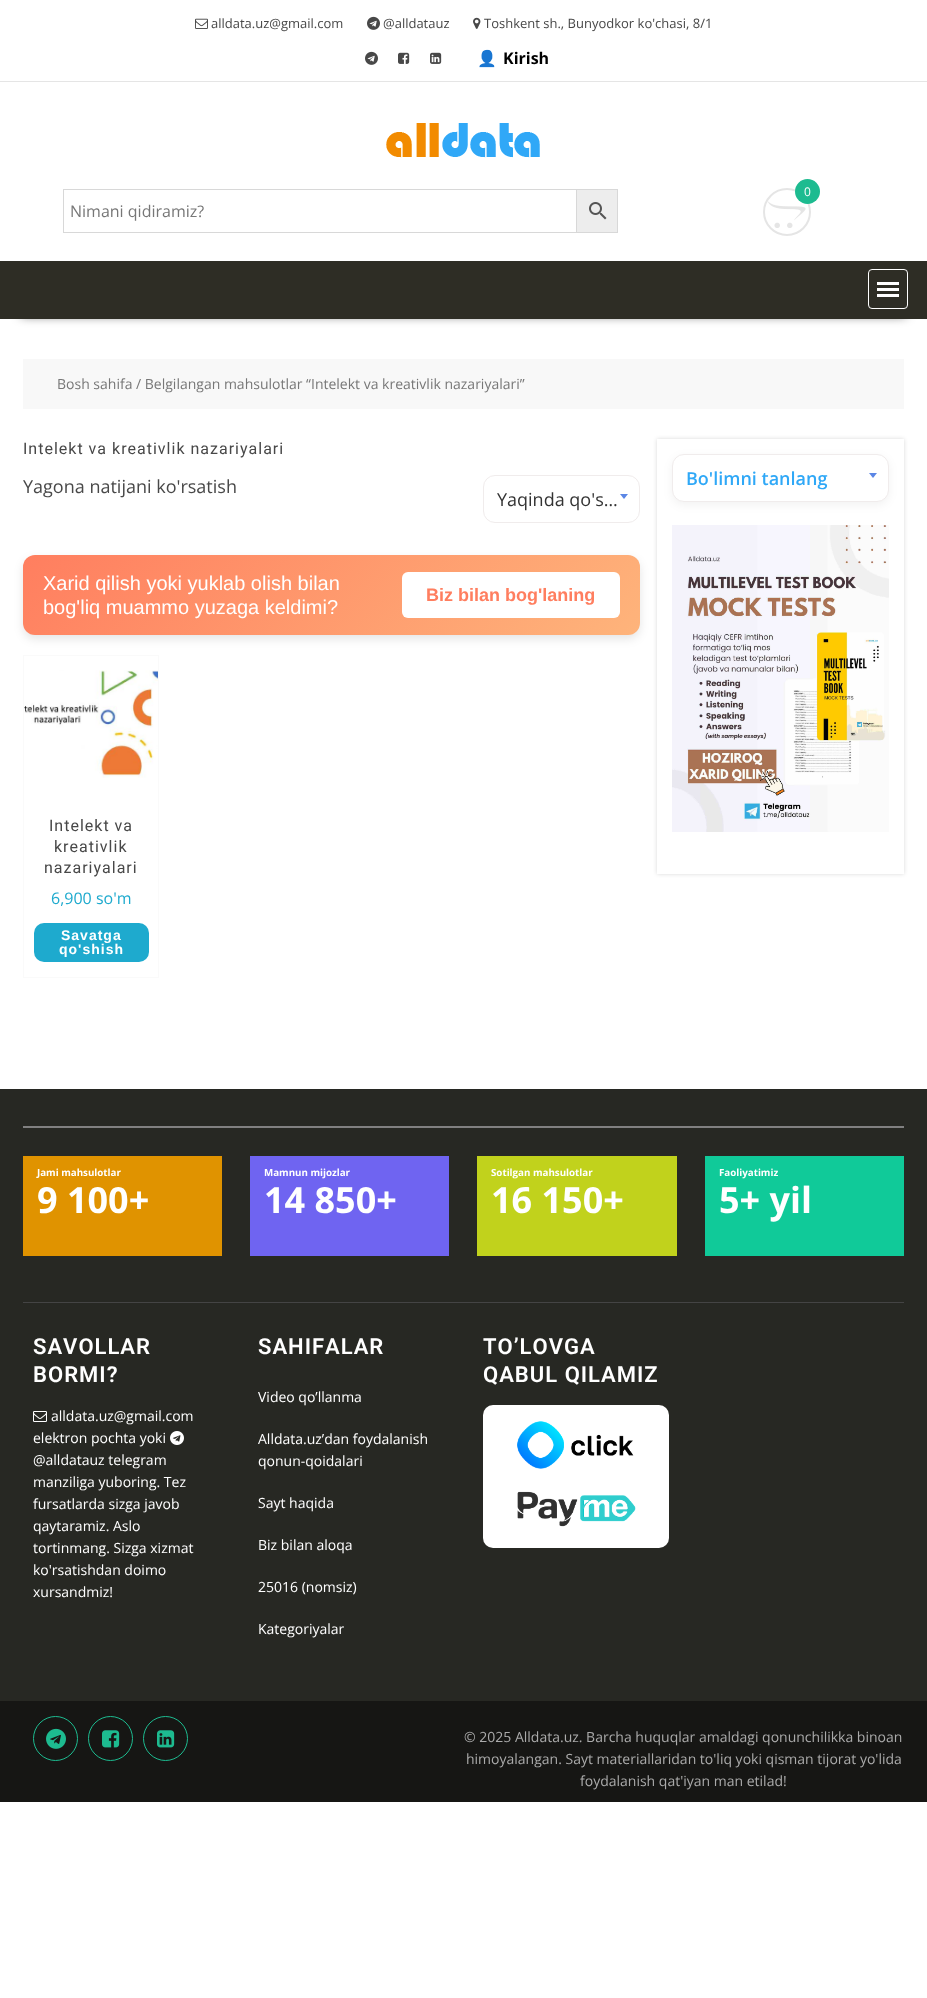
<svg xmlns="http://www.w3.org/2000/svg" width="927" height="1998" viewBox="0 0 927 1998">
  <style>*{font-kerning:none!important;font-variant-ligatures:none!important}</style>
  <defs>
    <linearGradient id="g1" gradientUnits="userSpaceOnUse" x1="157" y1="421" x2="506" y2="769"><stop offset="0" stop-color="rgb(255,126,95)"/><stop offset="1" stop-color="rgb(254,180,123)"/></linearGradient>
    <clipPath id="clip1"><path d="M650 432H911V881H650ZM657 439H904V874H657Z" clip-rule="evenodd"/></clipPath>
  </defs>
  <rect width="100%" height="100%" fill="rgb(255,255,255)"/>
  <rect x="0" y="81" width="927" height="1" fill="rgb(229,229,229)"/>
  <image x="195" y="18" width="13" height="11" href="pic1.png"/>
  <text x="211" y="28" font-family="Open Sans" font-size="13" fill="rgb(72,72,72)">alldata.uz@gmail.com</text>
  <image x="367" y="16" width="13" height="14" href="pic2.png"/>
  <text x="383" y="28" font-family="Open Sans" font-size="13" fill="rgb(72,72,72)">@alldatauz</text>
  <image x="473" y="17" width="8" height="12" href="pic3.png"/>
  <text x="484" y="28" font-family="Open Sans" font-size="13" fill="rgb(72,72,72)">Toshkent sh., Bunyodkor ko'chasi, 8/1</text>
  <image x="365" y="51" width="13" height="14" href="pic2.png"/>
  <image x="398" y="52" width="12" height="12" href="pic4.png"/>
  <image x="430" y="52" width="12" height="12" href="pic5.png"/>
  <text x="477" y="64" font-family="Noto Color Emoji" font-size="16" font-weight="bold" fill="rgb(0,0,0)">👤</text>
  <text x="503" y="64" font-family="Open Sans" font-size="16" font-weight="bold" fill="rgb(0,0,0)">Kirish</text>
  <image x="386" y="123" width="154" height="35" href="pic6.png"/>
  <circle cx="787" cy="212" r="23" fill="none" stroke="rgb(229,229,229)" stroke-width="2"/>
  <image x="768" y="201" width="38" height="27" href="pic7.png"/>
  <circle cx="807.5" cy="191.5" r="12.5" fill="rgb(29,187,144)"/>
  <text x="804" y="196" font-family="Open Sans" font-size="12" fill="rgb(255,255,255)">0</text>
  <rect x="576.5" y="189.5" width="41" height="43" fill="rgb(237,237,237)" stroke="rgb(216,216,216)"/>
  <rect x="63.5" y="189.5" width="513" height="43" fill="none" stroke="rgb(216,216,216)"/>
  <text x="70" y="217" font-family="Open Sans" font-size="16" fill="rgb(119,119,119)">Nimani qidiramiz?</text>
  <image x="589" y="202" width="18" height="18" href="pic8.png"/>
  <rect x="21" y="299" width="885" height="16" fill="rgba(0,0,0,0.75)" filter="blur(5.5px)"/>
  <rect x="0" y="261" width="927" height="58" fill="rgb(46,45,37)"/>
  <rect x="868.5" y="269.5" width="39" height="39" rx="3.5" fill="none" stroke="rgb(255,255,255)"/>
  <rect x="877" y="294" width="22" height="3" fill="rgb(255,255,255)"/>
  <rect x="877" y="288" width="22" height="3" fill="rgb(255,255,255)"/>
  <rect x="877" y="282" width="22" height="3" fill="rgb(255,255,255)"/>
  <rect x="23" y="359" width="881" height="50" fill="rgb(248,248,248)"/>
  <text x="57" y="389" font-family="Open Sans" font-size="14" fill="rgb(119,119,119)">Bosh sahifa / Belgilangan mahsulotlar “Intelekt va kreativlik nazariyalari”</text>
  <text x="23" y="454" font-family="Roboto" font-size="16" letter-spacing="1" fill="rgb(72,72,72)">Intelekt va kreativlik nazariyalari</text>
  <text x="23" y="493" font-family="Open Sans" font-size="18" fill="rgb(72,72,72)">Yagona natijani ko'rsatish</text>
  <rect x="483.5" y="475.5" width="156" height="47" rx="11.5" fill="none" stroke="rgb(240,236,236)"/>
  <text x="497" y="506" font-family="Open Sans" font-size="18" fill="rgb(51,51,51)">Yaqinda qo's…</text>
  <path d="M620 494H628L624 499Z" fill="rgb(91,134,229)"/>
  <rect x="23" y="559" width="617" height="80" rx="12" fill="rgba(0,0,0,0.1)" filter="blur(5px)"/>
  <rect x="23" y="555" width="617" height="80" rx="12" fill="url(#g1)"/>
  <g font-family="Liberation Sans" font-size="20" fill="rgb(255,255,255)">
    <text>
      <tspan x="43" y="590">Xarid qilish yoki yuklab olish bilan</tspan>
      <tspan x="43" y="614">bog'liq muammo yuzaga keldimi?</tspan>
    </text>
  </g>
  <rect x="402" y="572" width="218" height="46" rx="6" fill="rgb(255,255,255)"/>
  <text x="426" y="601" font-family="Liberation Sans" font-size="18" font-weight="bold" fill="rgb(255,126,95)">Biz bilan bog'laning</text>
  <rect x="23.5" y="655.5" width="135" height="322" fill="none" stroke="rgb(250,250,250)"/>
  <image x="24" y="670" width="134" height="108" href="pic9.png"/>
  <g font-family="Roboto" font-size="16" letter-spacing="1" fill="rgb(72,72,72)">
    <text x="49" y="831">Intelekt va</text>
    <text x="54" y="852">kreativlik</text>
    <text x="44" y="873">nazariyalari</text>
  </g>
  <text x="51" y="904" font-family="Open Sans" font-size="16" fill="rgb(30,170,206)">6,900 so'm</text>
  <rect x="34" y="923" width="115" height="39" rx="10" fill="rgb(30,170,206)"/>
  <g font-family="Liberation Sans" font-size="14" font-weight="bold" letter-spacing="1" fill="rgb(255,255,255)">
    <text x="61" y="940">Savatga</text>
    <text x="59" y="954">qo'shish</text>
  </g>
  <g clip-path="url(#clip1)">
    <rect x="657" y="439" width="247" height="435" fill="rgba(0,0,0,0.15)" filter="blur(2px)"/>
  </g>
  <rect x="672" y="457" width="217" height="48" rx="12" fill="rgba(0,0,0,0.05)" filter="blur(5px)"/>
  <rect x="672.5" y="454.5" width="216" height="47" rx="11.5" fill="rgb(255,255,255)" stroke="rgb(240,236,236)"/>
  <text x="686" y="485" font-family="Open Sans" font-size="18" font-weight="600" fill="rgb(47,168,247)">Bo'limni tanlang</text>
  <path d="M869 473H877L873 478Z" fill="rgb(91,134,229)"/>
  <image x="672" y="525" width="217" height="307" href="pic10.png"/>
  <rect x="0" y="1089" width="927" height="612" fill="rgb(39,40,35)"/>
  <rect x="23" y="1302" width="881" height="1" fill="rgb(68,68,68)"/>
  <rect x="23" y="1126" width="881" height="2" fill="rgb(128,128,128)"/>
  <rect x="23" y="1156" width="199" height="100" fill="rgb(224,147,0)"/>
  <text x="37" y="1176" font-family="Open Sans" font-size="9.75" font-weight="bold" fill="rgb(255,255,255)">Jami mahsulotlar</text>
  <text x="37" y="1213" font-family="Open Sans" font-size="36" font-weight="bold" fill="rgb(255,255,255)">9 100+</text>
  <rect x="250" y="1156" width="199" height="100" fill="rgb(111,100,241)"/>
  <text x="264" y="1176" font-family="Open Sans" font-size="9.75" font-weight="bold" fill="rgb(255,255,255)">Mamnun mijozlar</text>
  <text x="264" y="1213" font-family="Open Sans" font-size="36" font-weight="bold" fill="rgb(255,255,255)">14 850+</text>
  <rect x="477" y="1156" width="200" height="100" fill="rgb(193,210,28)"/>
  <text x="491" y="1176" font-family="Open Sans" font-size="9.75" font-weight="bold" fill="rgb(255,255,255)">Sotilgan mahsulotlar</text>
  <text x="491" y="1213" font-family="Open Sans" font-size="36" font-weight="bold" fill="rgb(255,255,255)">16 150+</text>
  <rect x="705" y="1156" width="199" height="100" fill="rgb(16,202,153)"/>
  <text x="719" y="1176" font-family="Open Sans" font-size="9.75" font-weight="bold" fill="rgb(255,255,255)">Faoliyatimiz</text>
  <text x="719" y="1213" font-family="Open Sans" font-size="36" font-weight="bold" fill="rgb(255,255,255)">5+ yil</text>
  <g font-family="Roboto" font-size="22" font-weight="600" letter-spacing="1" fill="rgb(255,255,255)">
    <text>
      <tspan x="33" y="1354">SAVOLLAR</tspan>
      <tspan x="33" y="1382">BORMI?</tspan>
    </text>
  </g>
  <image x="33" y="1411" width="14" height="11" href="pic11.png"/>
  <g font-family="Open Sans" font-size="14" fill="rgb(255,255,255)">
    <text x="51" y="1421">alldata.uz@gmail.com</text>
    <text x="33" y="1443">elektron pochta yoki</text>
  </g>
  <image x="170" y="1431" width="14" height="14" href="pic12.png"/>
  <g font-family="Open Sans" font-size="14" fill="rgb(255,255,255)">
    <text>
      <tspan x="33" y="1465">@alldatauz telegram</tspan>
      <tspan x="33" y="1487">manziliga yuboring. Tez</tspan>
      <tspan x="33" y="1509">fursatlarda sizga javob</tspan>
      <tspan x="33" y="1531">qaytaramiz. Aslo</tspan>
      <tspan x="33" y="1553">tortinmang. Sizga xizmat</tspan>
      <tspan x="33" y="1575">ko'rsatishdan doimo</tspan>
      <tspan x="33" y="1597">xursandmiz!</tspan>
    </text>
  </g>
  <text x="258" y="1354" font-family="Roboto" font-size="22" font-weight="600" letter-spacing="1" fill="rgb(255,255,255)">SAHIFALAR</text>
  <g font-family="Open Sans" font-size="14" fill="rgb(255,255,255)">
    <text x="258" y="1402">Video qo’llanma</text>
    <text>
      <tspan x="258" y="1444">Alldata.uz’dan foydalanish</tspan>
      <tspan x="258" y="1466">qonun-qoidalari</tspan>
    </text>
    <text x="258" y="1508">Sayt haqida</text>
    <text x="258" y="1550">Biz bilan aloqa</text>
    <text x="258" y="1592">25016 (nomsiz)</text>
    <text x="258" y="1634">Kategoriyalar</text>
  </g>
  <g font-family="Roboto" font-size="22" font-weight="600" letter-spacing="1" fill="rgb(255,255,255)">
    <text>
      <tspan x="483" y="1354">TO’LOVGA</tspan>
      <tspan x="483" y="1382">QABUL QILAMIZ</tspan>
    </text>
  </g>
  <rect x="483" y="1405" width="186" height="143" rx="10" fill="rgb(255,255,255)"/>
  <image x="517" y="1421" width="117" height="48" href="pic13.png"/>
  <image x="517" y="1491" width="119" height="36" href="pic14.png"/>
  <rect x="0" y="1701" width="927" height="101" fill="rgb(22,22,20)"/>
  <circle cx="55.5" cy="1738.5" r="22" fill="none" stroke="rgb(29,187,144)"/>
  <image x="46" y="1728" width="20" height="21" href="pic15.png"/>
  <circle cx="110.5" cy="1738.5" r="22" fill="none" stroke="rgb(29,187,144)"/>
  <image x="102" y="1730" width="18" height="18" href="pic16.png"/>
  <circle cx="165.5" cy="1738.5" r="22" fill="none" stroke="rgb(29,187,144)"/>
  <image x="157" y="1730" width="18" height="18" href="pic17.png"/>
  <g font-family="Open Sans" font-size="14" fill="rgb(171,171,171)">
    <text x="464" y="1742">© 2025 Alldata.uz. Barcha huquqlar amaldagi qonunchilikka binoan</text>
    <text x="466" y="1764">himoyalangan. Sayt materiallaridan to'liq yoki qisman tijorat yo'lida</text>
    <text x="580" y="1786">foydalanish qat'iyan man etilad!</text>
  </g>
</svg>
